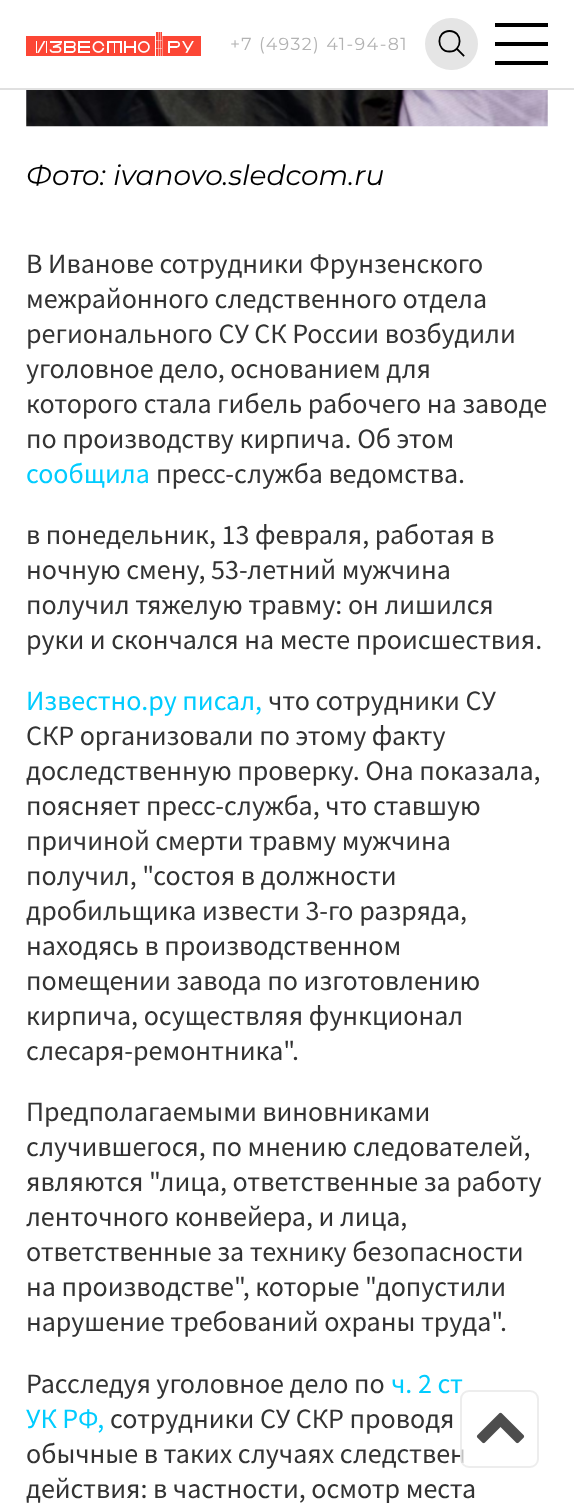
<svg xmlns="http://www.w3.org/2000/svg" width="574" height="1503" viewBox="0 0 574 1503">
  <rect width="100%" height="100%" fill="rgb(255,255,255)"/>
  <rect x="0" y="88" width="574" height="2" fill="rgb(224,224,224)"/>
  <image x="26" y="32" width="175" height="24" href="pic1.png"/>
  <text x="230" y="50" font-family="Montserrat" font-size="17.5" letter-spacing="1.4" fill="rgb(179,179,179)">+7 (4932) 41-94-81</text>
  <rect x="425" y="18" width="53" height="52" rx="26" fill="rgb(229,229,229)"/>
  <path d="M449.5 51.5C463 51.5 463 31 449.5 31C436 31 436 51.5 449.5 51.5Z" fill="none" stroke="rgb(0,0,0)" stroke-width="1.8"/>
  <path d="M457 49L463.5 55.5" fill="none" stroke="rgb(0,0,0)" stroke-width="1.8" stroke-linecap="square"/>
  <rect x="495" y="23" width="53" height="4" fill="rgb(0,0,0)"/>
  <rect x="495" y="42" width="53" height="4" fill="rgb(0,0,0)"/>
  <rect x="495" y="61" width="53" height="4" fill="rgb(0,0,0)"/>
  <image x="26" y="90" width="522" height="37" href="pic2.png"/>
  <text x="26" y="185" font-family="Montserrat" font-size="28" font-style="italic" fill="rgb(0,0,0)">Фото: ivanovo.sledcom.ru</text>
  <g font-family="Source Sans Pro" font-size="28" fill="rgb(51,51,51)">
    <text>
      <tspan x="26" y="273">В Иванове сотрудники Фрунзенского</tspan>
      <tspan x="26" y="308">межрайонного следственного отдела</tspan>
      <tspan x="26" y="343">регионального СУ СК России возбудили</tspan>
      <tspan x="26" y="378">уголовное дело, основанием для</tspan>
      <tspan x="26" y="413">которого стала гибель рабочего на заводе</tspan>
      <tspan x="26" y="448">по производству кирпича. Об этом</tspan>
    </text>
  </g>
  <text x="26" y="483" font-family="Source Sans Pro" font-size="28" fill="rgb(0,204,255)">сообщила</text>
  <g font-family="Source Sans Pro" font-size="28" fill="rgb(51,51,51)">
    <text x="156" y="483">пресс-служба ведомства.</text>
    <text>
      <tspan x="26" y="544">в понедельник, 13 февраля, работая в</tspan>
      <tspan x="26" y="579">ночную смену, 53-летний мужчина</tspan>
      <tspan x="26" y="614">получил тяжелую травму: он лишился</tspan>
      <tspan x="26" y="649">руки и скончался на месте происшествия.</tspan>
    </text>
  </g>
  <text x="26" y="710" font-family="Source Sans Pro" font-size="28" fill="rgb(0,204,255)">Известно.ру писал,</text>
  <g font-family="Source Sans Pro" font-size="28" fill="rgb(51,51,51)">
    <text x="268" y="710">что сотрудники СУ</text>
    <text>
      <tspan x="26" y="745">СКР организовали по этому факту</tspan>
      <tspan x="26" y="780">доследственную проверку. Она показала,</tspan>
      <tspan x="26" y="815">поясняет пресс-служба, что ставшую</tspan>
      <tspan x="26" y="850">причиной смерти травму мужчина</tspan>
      <tspan x="26" y="885">получил, "состоя в должности</tspan>
      <tspan x="26" y="920">дробильщика извести 3-го разряда,</tspan>
      <tspan x="26" y="955">находясь в производственном</tspan>
      <tspan x="26" y="990">помещении завода по изготовлению</tspan>
      <tspan x="26" y="1025">кирпича, осуществляя функционал</tspan>
      <tspan x="26" y="1060">слесаря-ремонтника".</tspan>
    </text>
    <text>
      <tspan x="26" y="1121">Предполагаемыми виновниками</tspan>
      <tspan x="26" y="1156">случившегося, по мнению следователей,</tspan>
      <tspan x="26" y="1191">являются "лица, ответственные за работу</tspan>
      <tspan x="26" y="1226">ленточного конвейера, и лица,</tspan>
      <tspan x="26" y="1261">ответственные за технику безопасности</tspan>
      <tspan x="26" y="1296">на производстве", которые "допустили</tspan>
      <tspan x="26" y="1331">нарушение требований охраны труда".</tspan>
    </text>
    <text x="26" y="1393">Расследуя уголовное дело по</text>
  </g>
  <g font-family="Source Sans Pro" font-size="28" fill="rgb(0,204,255)">
    <text x="391" y="1393">ч. 2 ст</text>
    <text x="26" y="1428">УК РФ,</text>
  </g>
  <g font-family="Source Sans Pro" font-size="28" fill="rgb(51,51,51)">
    <text x="110" y="1428">сотрудники СУ СКР проводя</text>
    <text>
      <tspan x="26" y="1463">обычные в таких случаях следствен</tspan>
      <tspan x="26" y="1498">действия: в частности, осмотр места</tspan>
    </text>
  </g>
  <rect x="460" y="1390" width="79" height="78" rx="9" fill="rgba(255,255,255,0.7)"/>
  <rect x="461" y="1391" width="77" height="76" rx="8" fill="none" stroke="rgba(229,229,229,0.7)" stroke-width="2"/>
  <image x="476" y="1412" width="49" height="32" href="pic3.png"/>
</svg>
